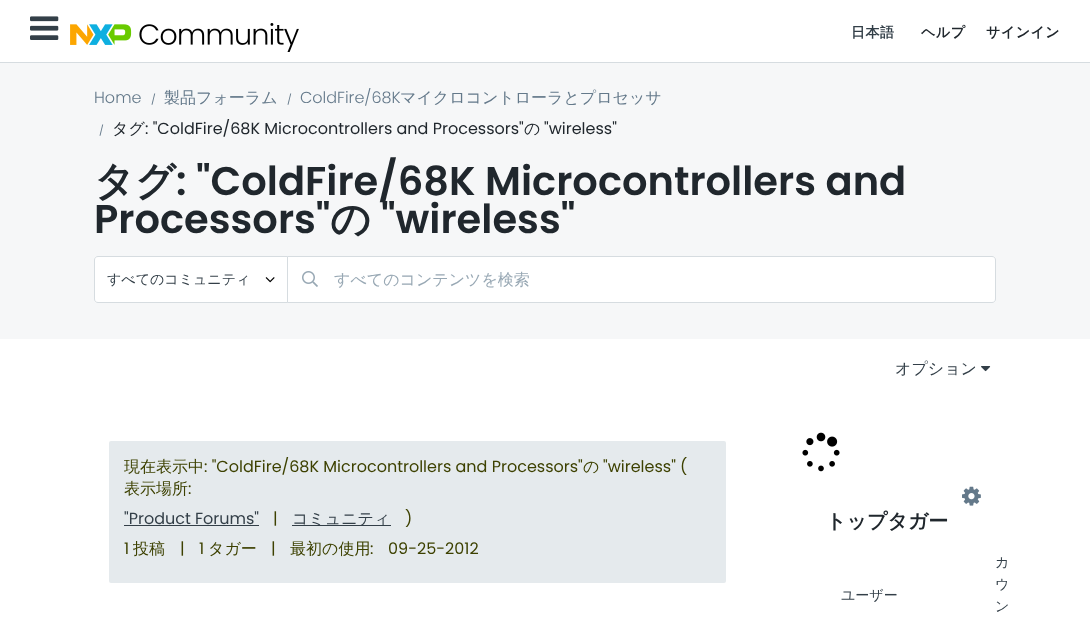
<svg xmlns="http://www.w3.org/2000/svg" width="1090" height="618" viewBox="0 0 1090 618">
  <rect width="100%" height="100%" fill="rgb(255,255,255)"/>
  <rect x="0" y="62" width="1090" height="1" fill="rgb(214,220,224)"/>
  <image x="30" y="16" width="29" height="24" href="pic1.png"/>
  <image x="70" y="23" width="229" height="29" href="pic2.png"/>
  <text x="851" y="37" font-family="WenQuanYi Zen Hei" font-size="14" font-weight="bold" letter-spacing="0.5" fill="rgb(51,63,72)">日本語</text>
  <g font-family="WenQuanYi Zen Hei" font-size="14" font-weight="bold" letter-spacing="0.5" fill="rgb(32,39,45)">
    <text x="921" y="37">ヘルプ</text>
    <text x="986" y="37">サインイン</text>
  </g>
  <rect x="0" y="63" width="1090" height="276" fill="rgb(246,247,248)"/>
  <text x="94" y="103" font-family="Poppins" font-size="16" font-weight="300" fill="rgb(100,121,138)">Home</text>
  <text x="151" y="103" font-family="Poppins" font-size="10" fill="rgb(100,121,138)">/</text>
  <text x="164" y="103" font-family="WenQuanYi Zen Hei" font-size="16" font-weight="500" fill="rgb(100,121,138)">製品フォーラム</text>
  <text x="287" y="103" font-family="Poppins" font-size="10" fill="rgb(100,121,138)">/</text>
  <text x="300" y="103" font-family="Poppins" font-size="16" font-weight="300" fill="rgb(100,121,138)">ColdFire/68K</text>
  <text x="400" y="103" font-family="WenQuanYi Zen Hei" font-size="16" font-weight="500" fill="rgb(100,121,138)">マイクロコントローラとプロセッサ</text>
  <text x="99" y="134" font-family="Poppins" font-size="10" fill="rgb(100,121,138)">/</text>
  <text x="112" y="134" font-family="WenQuanYi Zen Hei" font-size="16" font-weight="500" fill="rgb(32,39,45)">タグ</text>
  <text x="145" y="134" font-family="Poppins" font-size="16" fill="rgb(32,39,45)">: "ColdFire/68K Microcontrollers and Processors"</text>
  <text x="524" y="134" font-family="WenQuanYi Zen Hei" font-size="16" font-weight="500" fill="rgb(32,39,45)">の</text>
  <text x="544" y="134" font-family="Poppins" font-size="16" fill="rgb(32,39,45)">"wireless"</text>
  <text x="94" y="195" font-family="WenQuanYi Zen Hei" font-size="40" font-weight="bold" fill="rgb(32,39,45)">タグ</text>
  <g font-family="Poppins" font-size="40" font-weight="600" fill="rgb(32,39,45)">
    <text x="176" y="195">: "ColdFire/68K Microcontrollers and</text>
    <text x="94" y="233">Processors"</text>
  </g>
  <text x="330" y="233" font-family="WenQuanYi Zen Hei" font-size="40" font-weight="bold" fill="rgb(32,39,45)">の</text>
  <text x="381" y="233" font-family="Poppins" font-size="40" font-weight="600" fill="rgb(32,39,45)">"wireless"</text>
  <path d="M287.5 256.5H992C994 256.5 995.5 258 995.5 260V299C995.5 301 994 302.5 992 302.5H287.5Z" fill="rgb(255,255,255)" stroke="rgb(214,220,224)"/>
  <path d="M98 256.5H287.5V302.5H98C96 302.5 94.5 301 94.5 299V260C94.5 258 96 256.5 98 256.5Z" fill="rgb(255,255,255)" stroke="rgb(214,220,224)"/>
  <text x="107" y="284" font-family="WenQuanYi Zen Hei" font-size="14" font-weight="500" fill="rgb(51,63,72)">すべてのコミュニティ</text>
  <image x="265" y="277" width="10" height="6" href="pic3.png"/>
  <image x="302" y="271" width="16" height="16" href="pic4.png"/>
  <text x="334" y="285" font-family="WenQuanYi Zen Hei" font-size="16" font-weight="500" fill="rgb(152,168,180)">すべてのコンテンツを検索</text>
  <text x="895" y="374" font-family="WenQuanYi Zen Hei" font-size="16" font-weight="500" fill="rgb(51,63,72)">オプション</text>
  <image x="981" y="366" width="10" height="6" href="pic5.png"/>
  <rect x="109" y="441" width="617" height="142" rx="2" fill="rgb(229,234,237)"/>
  <text x="124" y="472" font-family="WenQuanYi Zen Hei" font-size="16" font-weight="500" fill="rgb(61,65,1)">現在表示中</text>
  <text x="204" y="472" font-family="Poppins" font-size="16" fill="rgb(61,65,1)">: "ColdFire/68K Microcontrollers and Processors"</text>
  <text x="583" y="472" font-family="WenQuanYi Zen Hei" font-size="16" font-weight="500" fill="rgb(61,65,1)">の</text>
  <text x="603" y="472" font-family="Poppins" font-size="16" fill="rgb(61,65,1)">"wireless" (</text>
  <text x="124" y="494" font-family="WenQuanYi Zen Hei" font-size="16" font-weight="500" fill="rgb(61,65,1)">表示場所</text>
  <text x="188" y="494" font-family="Poppins" font-size="16" fill="rgb(61,65,1)">:</text>
  <text x="124" y="524" font-family="Poppins" font-size="16" fill="rgb(51,63,72)">"Product Forums"</text>
  <rect x="124" y="525" width="135" height="1" fill="rgb(51,63,72)"/>
  <text x="273" y="524" font-family="Poppins" font-size="16" fill="rgb(61,65,1)">|</text>
  <rect x="292" y="525" width="99" height="1" fill="rgb(51,63,72)"/>
  <text x="292" y="524" font-family="WenQuanYi Zen Hei" font-size="16" font-weight="500" fill="rgb(51,63,72)">コミュニティ</text>
  <g font-family="Poppins" font-size="16" fill="rgb(61,65,1)">
    <text x="405" y="524">)</text>
    <text x="124" y="554">1</text>
  </g>
  <text x="133" y="554" font-family="WenQuanYi Zen Hei" font-size="16" font-weight="500" fill="rgb(61,65,1)">投稿</text>
  <g font-family="Poppins" font-size="16" fill="rgb(61,65,1)">
    <text x="180" y="554">|</text>
    <text x="199" y="554">1</text>
  </g>
  <text x="208" y="554" font-family="WenQuanYi Zen Hei" font-size="16" font-weight="500" fill="rgb(61,65,1)">タガー</text>
  <text x="271" y="554" font-family="Poppins" font-size="16" fill="rgb(61,65,1)">|</text>
  <text x="290" y="554" font-family="WenQuanYi Zen Hei" font-size="16" font-weight="500" fill="rgb(61,65,1)">最初の使用</text>
  <g font-family="Poppins" font-size="16" fill="rgb(61,65,1)">
    <text x="370" y="554">:</text>
    <text x="388" y="554">09-25-2012</text>
  </g>
  <image x="802" y="432" width="38" height="40" href="pic6.png"/>
  <text x="826" y="528" font-family="WenQuanYi Zen Hei" font-size="20" font-weight="bold" fill="rgb(32,39,45)">トップタガー</text>
  <image x="962" y="486" width="19" height="20" href="pic7.png"/>
  <g font-family="WenQuanYi Zen Hei" font-size="14" font-weight="500" fill="rgb(51,63,72)">
    <text x="841" y="600">ユーザー</text>
    <text>
      <tspan x="995" y="567">カ</tspan>
      <tspan x="995" y="589">ウ</tspan>
      <tspan x="995" y="611">ン</tspan>
    </text>
  </g>
</svg>
